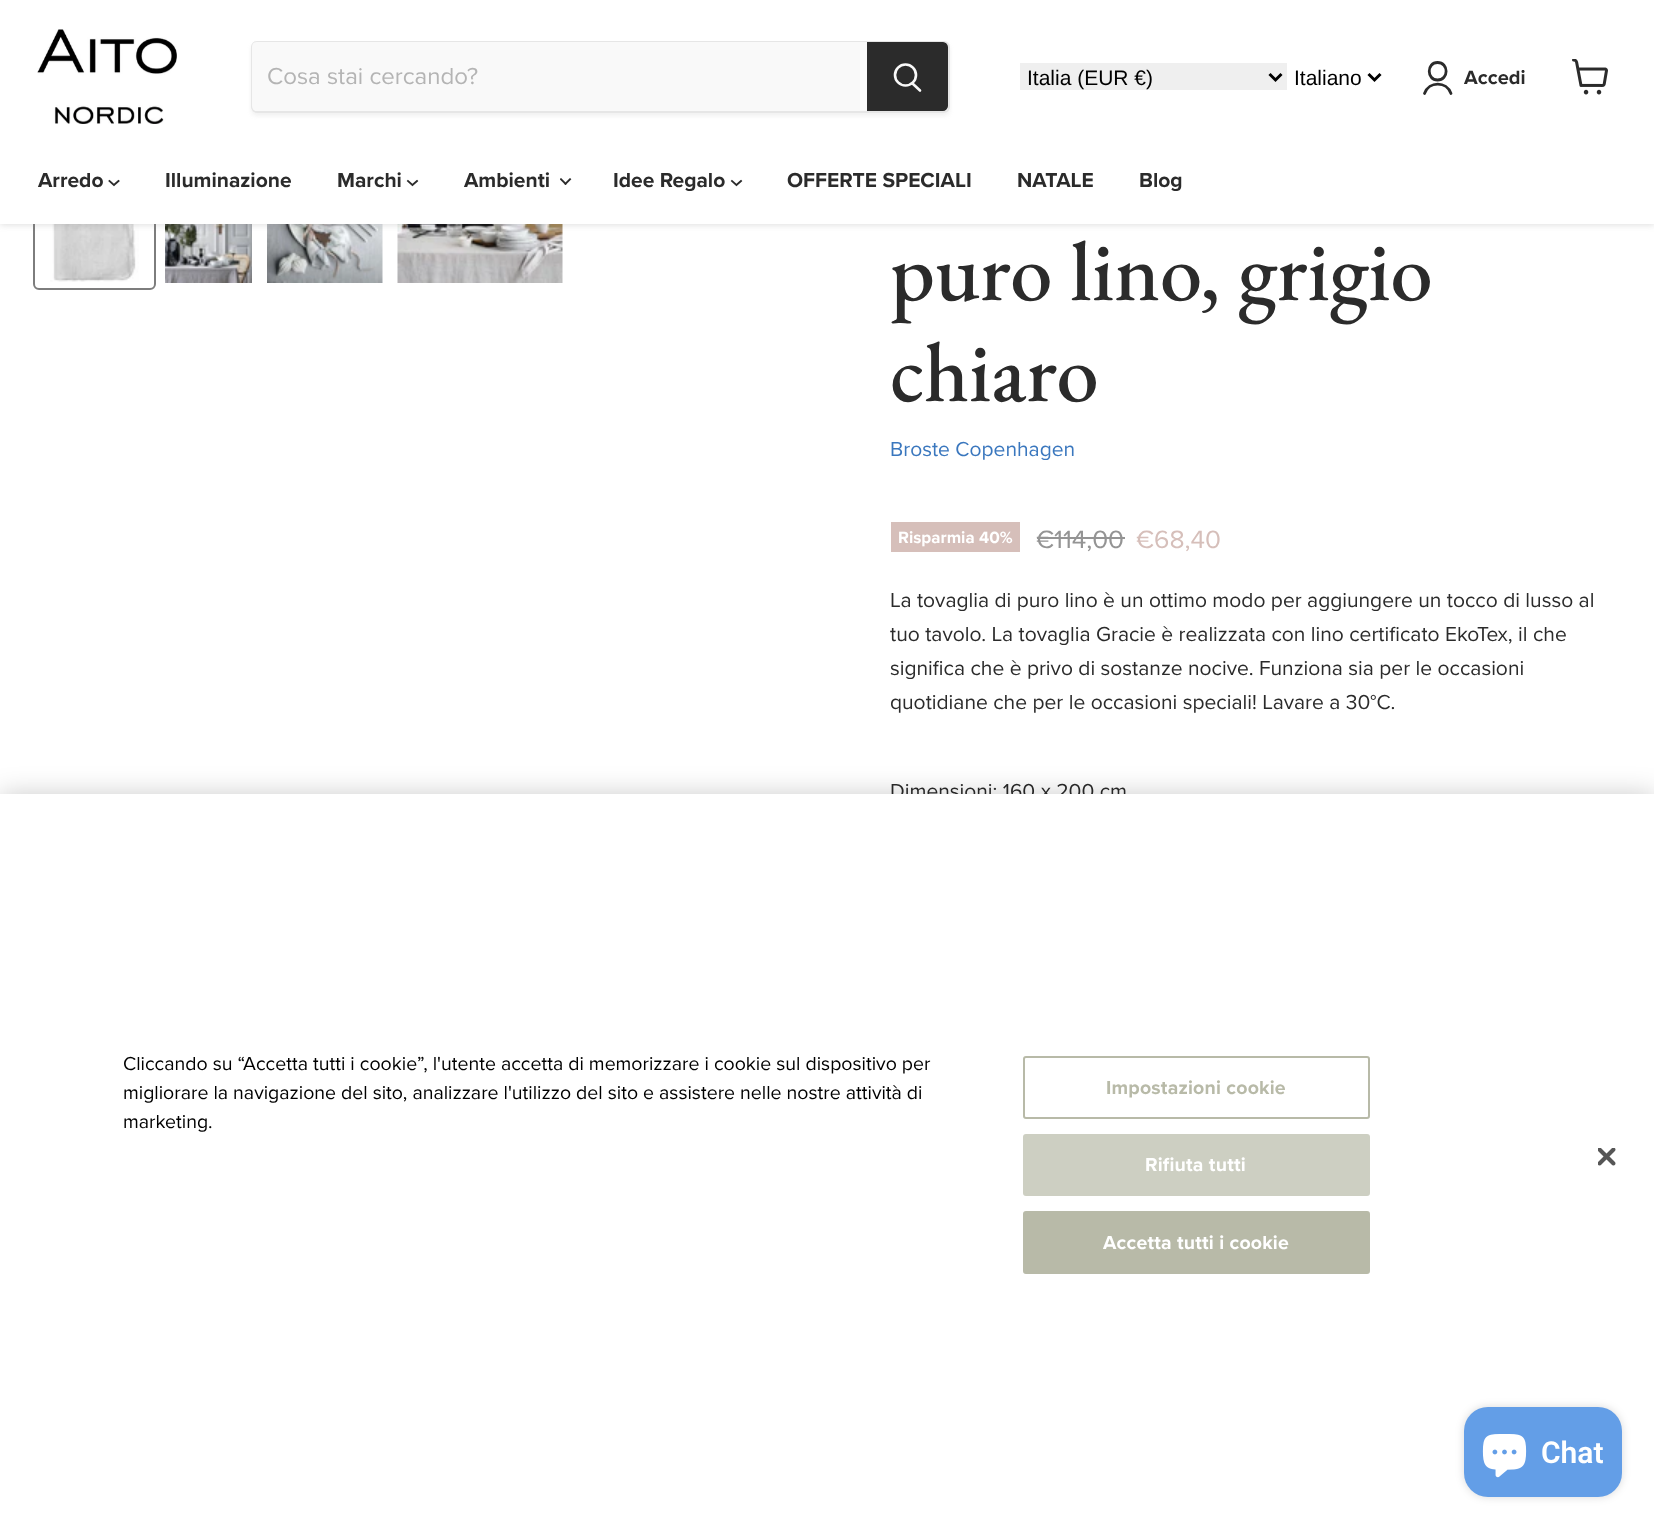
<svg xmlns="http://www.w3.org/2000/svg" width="1654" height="1528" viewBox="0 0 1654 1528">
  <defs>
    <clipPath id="clip1"><path d="M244 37H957V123H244ZM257 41H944C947.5 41 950 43.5 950 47V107C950 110.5 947.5 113 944 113H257C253.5 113 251 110.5 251 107V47C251 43.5 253.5 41 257 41Z" clip-rule="evenodd"/></clipPath>
  </defs>
  <rect width="100%" height="100%" fill="rgb(255,255,255)"/>
  <rect x="34" y="168" width="121" height="121" rx="5" fill="none" stroke="rgb(125,125,125)" stroke-width="2"/>
  <image x="50" y="224" width="89" height="58" href="pic4.png"/>
  <image x="165" y="224" width="87" height="59" href="pic5.png"/>
  <image x="267" y="224" width="116" height="59" href="pic6.png"/>
  <image x="397" y="224" width="166" height="59" href="pic7.png"/>
  <rect x="0" y="2" width="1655" height="223" fill="rgba(128,128,128,0.25)" filter="blur(3px)"/>
  <rect x="0" y="0" width="1654" height="224" fill="rgb(255,255,255)"/>
  <image x="37" y="29" width="140" height="95" href="pic1.png"/>
  <g clip-path="url(#clip1)">
    <rect x="251" y="44" width="699" height="72" rx="6" fill="rgba(128,128,128,0.11)" filter="blur(2px)"/>
  </g>
  <rect x="252" y="42" width="697" height="70" rx="5" fill="none" stroke="rgba(128,128,128,0.2)" stroke-width="2"/>
  <path d="M257 42H867V111H257C254 111 252 109 252 106V47C252 44 254 42 257 42Z" fill="rgb(249,249,249)"/>
  <text x="267" y="84" font-family="Proxima Nova" font-size="24" fill="rgb(180,180,180)">Cosa stai cercando?</text>
  <path d="M868 43H943C945 43 947 45 947 47V106C947 108 945 110 943 110H868Z" fill="rgb(43,43,43)" stroke="rgb(43,43,43)" stroke-width="2"/>
  <path d="M920 90.5L912.5 83.5" fill="none" stroke="rgb(249,249,249)" stroke-width="2.6" stroke-linecap="round"/>
  <circle cx="905.5" cy="75" r="10.5" fill="none" stroke="rgb(249,249,249)" stroke-width="2.6"/>
  <rect x="1020" y="63" width="267" height="27" fill="rgb(239,239,239)"/>
  <path d="M1269.5 74L1275.5 80L1281.5 74" fill="none" stroke="rgb(0,0,0)" stroke-width="3"/>
  <text x="1027" y="85" font-family="Liberation Sans" font-size="21" fill="rgb(0,0,0)">Italia (EUR €)</text>
  <path d="M1368.5 74L1374.5 80L1380.5 74" fill="none" stroke="rgb(0,0,0)" stroke-width="3"/>
  <text x="1294" y="85" font-family="Liberation Sans" font-size="21" fill="rgb(0,0,0)">Italiano</text>
  <path d="M1437.5 80C1449 80 1449 62.5 1437.5 62.5C1426.5 62.5 1426.5 80 1437.5 80ZM1451 93.5C1446.5 81 1429 81 1424.5 93.5" fill="none" stroke="rgb(43,43,43)" stroke-width="2.8" stroke-linecap="round" stroke-linejoin="round"/>
  <text x="1464" y="84" font-family="Proxima Nova" font-size="20" font-weight="bold" fill="rgb(43,43,43)">Accedi</text>
  <image x="1572" y="59" width="36" height="36" href="pic2.png"/>
  <text x="38" y="187" font-family="Proxima Nova" font-size="21" font-weight="bold" fill="rgb(43,43,43)">Arredo</text>
  <path d="M114 185L118.5 181M114 185L109.5 181" fill="none" stroke="rgb(43,43,43)" stroke-width="1.9" stroke-linecap="square"/>
  <g font-family="Proxima Nova" font-size="21" font-weight="bold" fill="rgb(43,43,43)">
    <text x="165" y="187">Illuminazione</text>
    <text x="337" y="187">Marchi</text>
  </g>
  <path d="M412.5 185L417 181M412.5 185L408 181" fill="none" stroke="rgb(43,43,43)" stroke-width="1.9" stroke-linecap="square"/>
  <text x="464" y="187" font-family="Proxima Nova" font-size="21" font-weight="bold" fill="rgb(43,43,43)">Ambienti</text>
  <image x="560" y="178" width="12" height="7" href="pic3.png"/>
  <text x="613" y="187" font-family="Proxima Nova" font-size="21" font-weight="bold" fill="rgb(43,43,43)">Idee Regalo</text>
  <path d="M736.5 185L741 181M736.5 185L732 181" fill="none" stroke="rgb(43,43,43)" stroke-width="1.9" stroke-linecap="square"/>
  <g font-family="Proxima Nova" font-size="21" font-weight="bold" fill="rgb(43,43,43)">
    <text x="787" y="187">OFFERTE SPECIALI</text>
    <text x="1017" y="187">NATALE</text>
    <text x="1139" y="187">Blog</text>
  </g>
  <g font-family="EB Garamond" font-size="84.5" font-weight="500" fill="rgb(43,43,43)">
    <text>
      <tspan x="890" y="300">puro lino, grigio</tspan>
      <tspan x="890" y="401">chiaro</tspan>
    </text>
  </g>
  <text x="890" y="456" font-family="Proxima Nova" font-size="21" fill="rgb(58,119,190)">Broste Copenhagen</text>
  <rect x="891" y="522" width="129" height="30" fill="rgb(214,191,186)"/>
  <text x="898" y="543" font-family="Proxima Nova" font-size="17" font-weight="bold" fill="rgb(255,255,255)">Risparmia 40%</text>
  <text x="1036" y="548" font-family="Proxima Nova" font-size="26" fill="rgb(148,148,148)">€114,00</text>
  <rect x="1037" y="537" width="88" height="2" fill="rgb(148,148,148)"/>
  <text x="1136" y="548" font-family="Proxima Nova" font-size="26" fill="rgb(214,191,186)">€68,40</text>
  <g font-family="Proxima Nova" font-size="21" fill="rgb(43,43,43)">
    <text>
      <tspan x="890" y="607">La tovaglia di puro lino è un ottimo modo per aggiungere un tocco di lusso al</tspan>
      <tspan x="890" y="641">tuo tavolo. La tovaglia Gracie è realizzata con lino certificato EkoTex, il che</tspan>
      <tspan x="890" y="675">significa che è privo di sostanze nocive. Funziona sia per le occasioni</tspan>
      <tspan x="890" y="709">quotidiane che per le occasioni speciali! Lavare a 30°C.</tspan>
    </text>
    <text x="890" y="798">Dimensioni: 160 x 200 cm</text>
  </g>
  <rect x="0" y="794" width="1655" height="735" fill="rgba(0,0,0,0.2)" filter="blur(13.5px)"/>
  <rect x="0" y="794" width="1654" height="734" fill="rgb(255,255,255)"/>
  <g font-family="Proxima Nova" font-size="19.5" fill="rgb(0,0,0)">
    <text>
      <tspan x="123" y="1070">Cliccando su “Accetta tutti i cookie”, l'utente accetta di memorizzare i cookie sul dispositivo per</tspan>
      <tspan x="123" y="1099">migliorare la navigazione del sito, analizzare l'utilizzo del sito e assistere nelle nostre attività di</tspan>
      <tspan x="123" y="1128">marketing.</tspan>
    </text>
  </g>
  <rect x="1024" y="1057" width="345" height="61" rx="2" fill="none" stroke="rgb(184,186,168)" stroke-width="2"/>
  <text x="1106" y="1094" font-family="Proxima Nova" font-size="19.5" font-weight="bold" letter-spacing="0.2" fill="rgb(184,186,168)">Impostazioni cookie</text>
  <rect x="1024" y="1135" width="345" height="60" rx="2" fill="rgb(205,207,194)" stroke="rgb(205,207,194)" stroke-width="2"/>
  <text x="1145" y="1171" font-family="Proxima Nova" font-size="19.5" font-weight="bold" letter-spacing="0.2" fill="rgb(255,255,255)">Rifiuta tutti</text>
  <rect x="1024" y="1212" width="345" height="61" rx="2" fill="rgb(184,186,168)" stroke="rgb(184,186,168)" stroke-width="2"/>
  <text x="1103" y="1249" font-family="Proxima Nova" font-size="19.5" font-weight="bold" letter-spacing="0.2" fill="rgb(255,255,255)">Accetta tutti i cookie</text>
  <image x="1598" y="1148" width="18" height="18" href="pic8.png"/>
  <rect x="1464" y="1407" width="158" height="90" rx="24" fill="rgba(0,0,0,0.15)" filter="blur(4px)"/>
  <rect x="1464" y="1407" width="158" height="90" rx="24" fill="rgb(99,158,231)"/>
  <image x="1482" y="1434" width="45" height="44" href="pic9.png"/>
  <text x="1541" y="1463" font-family="Roboto" font-size="30" font-weight="600" fill="rgb(255,255,255)">Chat</text>
</svg>
